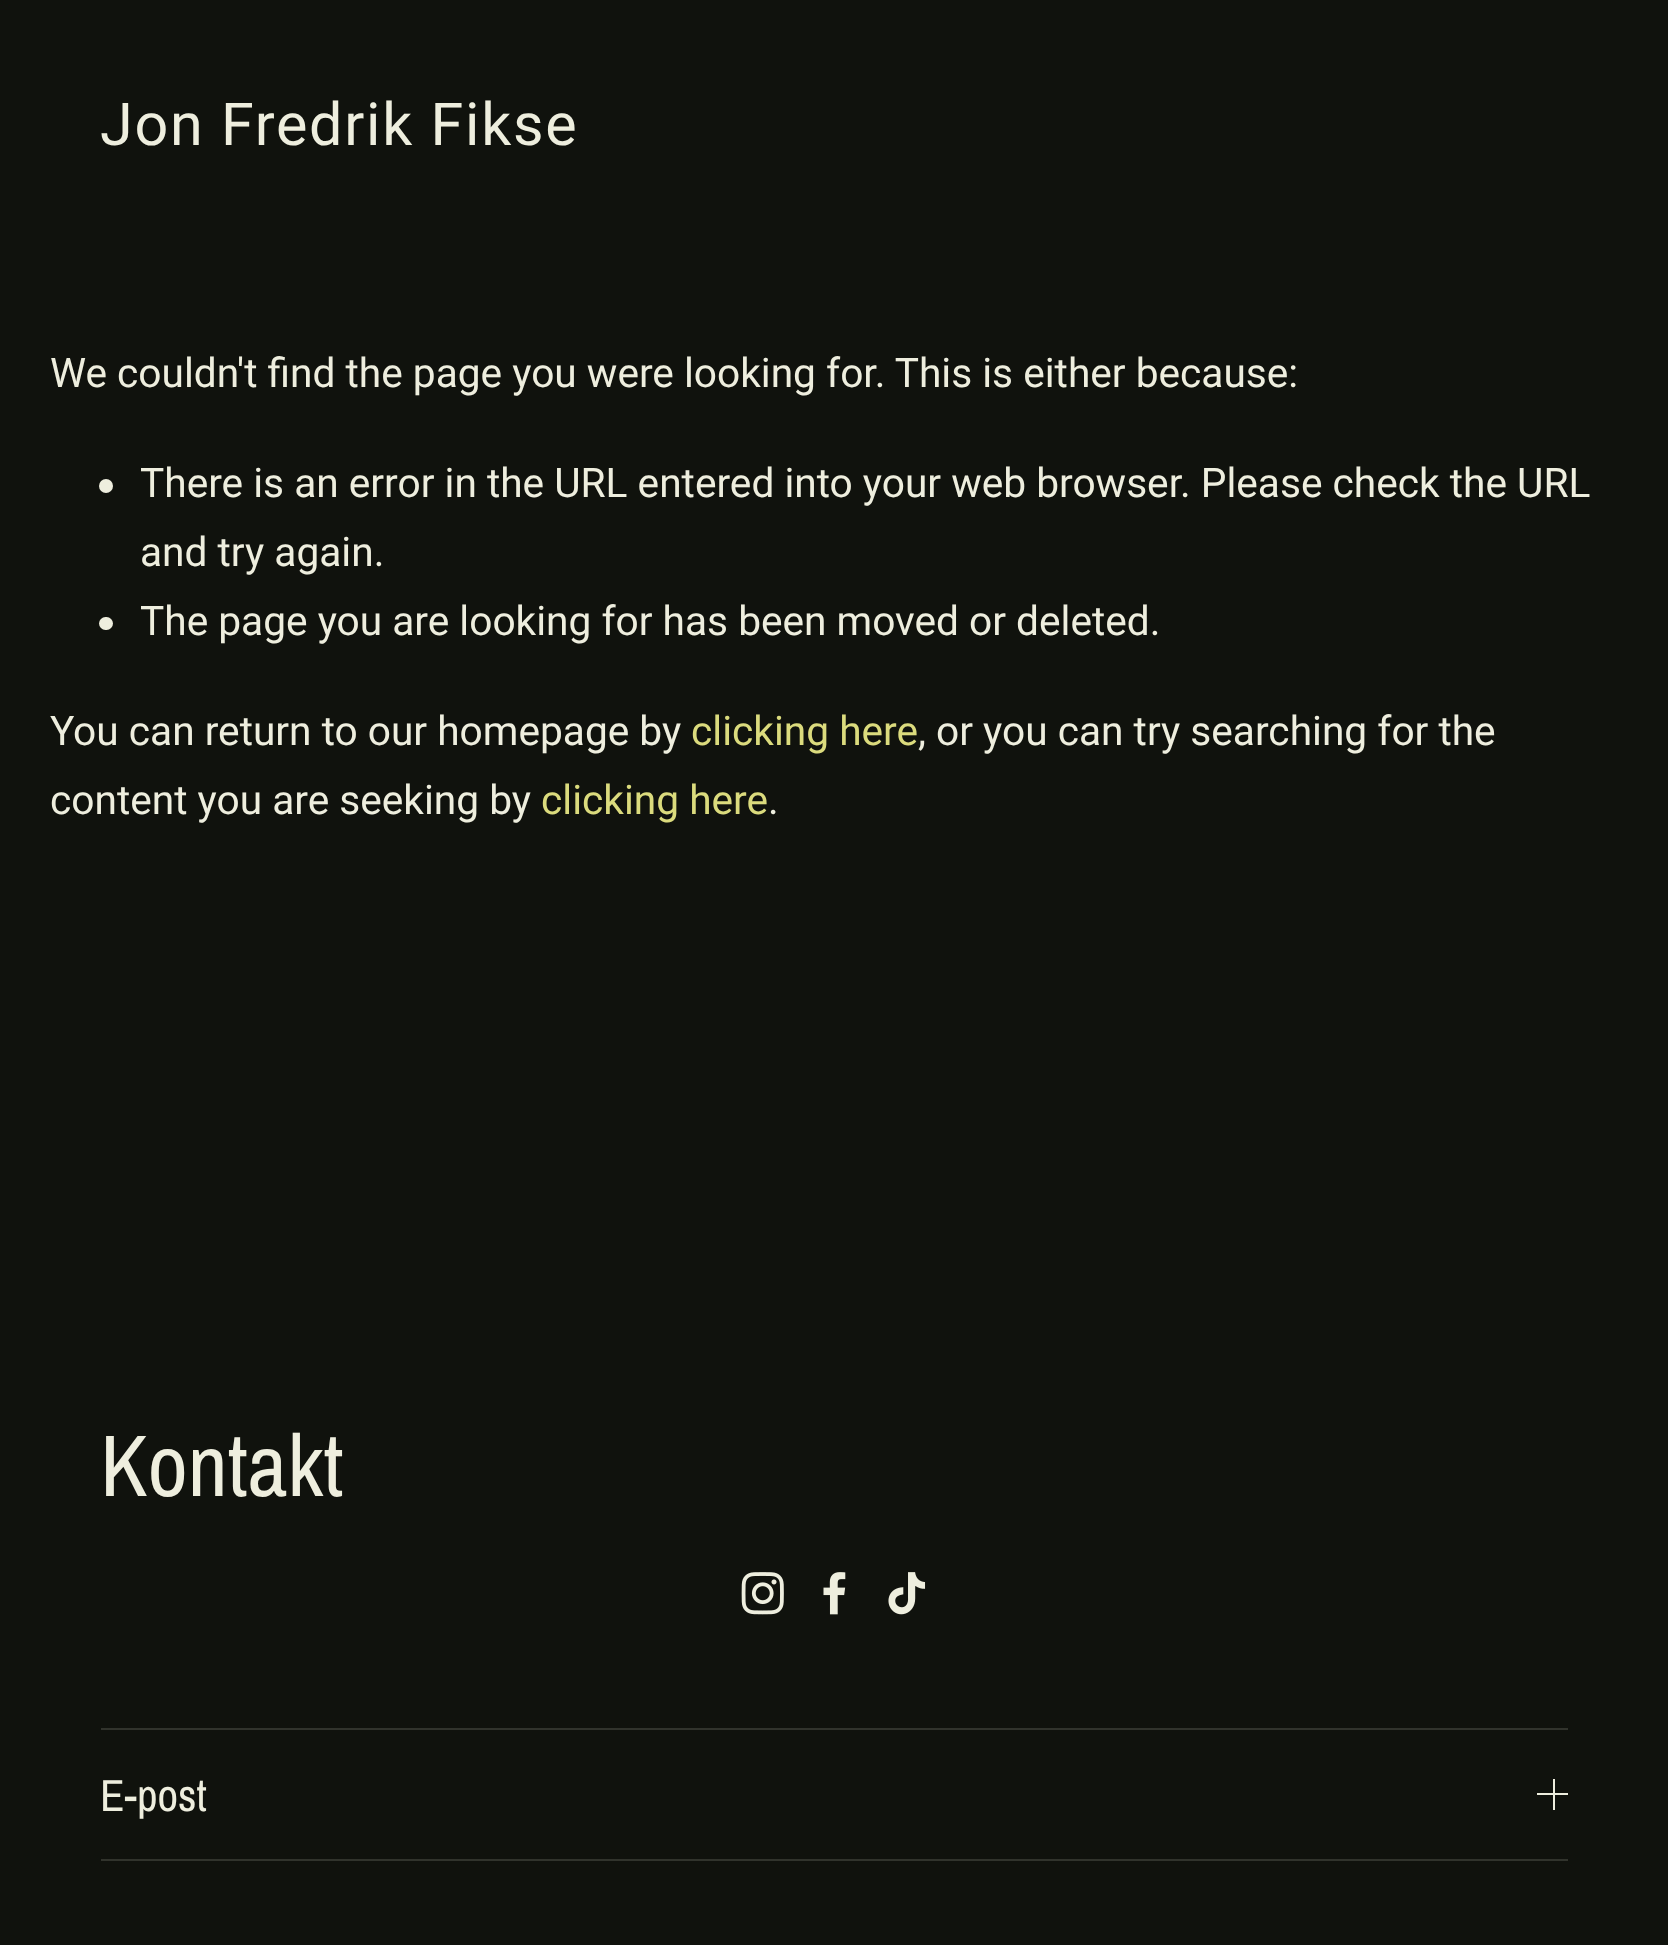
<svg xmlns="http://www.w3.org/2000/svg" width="1668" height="1945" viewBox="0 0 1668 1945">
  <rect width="100%" height="100%" fill="rgb(16,18,13)"/>
  <text x="100" y="145" font-family="Roboto" font-size="59.25" letter-spacing="1.75" fill="rgb(238,238,222)">Jon Fredrik Fikse</text>
  <text x="50" y="387" font-family="Roboto" font-size="40.65" fill="rgb(238,238,222)">We couldn't find the page you were looking for. This is either because:</text>
  <circle cx="106" cy="486" r="7" fill="rgb(238,238,222)"/>
  <g font-family="Roboto" font-size="40.65" fill="rgb(238,238,222)">
    <text>
      <tspan x="140" y="497">There is an error in the URL entered into your web browser. Please check the URL</tspan>
      <tspan x="140" y="566">and try again.</tspan>
    </text>
  </g>
  <rect x="99" y="617" width="14" height="13" rx="6.5" fill="rgb(238,238,222)"/>
  <g font-family="Roboto" font-size="40.65" fill="rgb(238,238,222)">
    <text x="140" y="635">The page you are looking for has been moved or deleted.</text>
    <text x="50" y="745">You can return to our homepage by</text>
  </g>
  <text x="691" y="745" font-family="Roboto" font-size="40.65" fill="rgb(219,219,125)">clicking here</text>
  <g font-family="Roboto" font-size="40.65" fill="rgb(238,238,222)">
    <text x="918" y="745">, or you can try searching for the</text>
    <text x="50" y="814">content you are seeking by</text>
  </g>
  <text x="541" y="814" font-family="Roboto" font-size="40.65" fill="rgb(219,219,125)">clicking here</text>
  <text x="768" y="814" font-family="Roboto" font-size="40.65" fill="rgb(238,238,222)">.</text>
  <text x="100" y="1496" font-family="Archivo Narrow" font-size="87.5" fill="rgb(238,238,222)">Kontakt</text>
  <image x="741" y="1572" width="43" height="43" href="pic1.png"/>
  <image x="823" y="1572" width="23" height="43" href="pic2.png"/>
  <image x="888" y="1572" width="38" height="43" href="pic3.png"/>
  <rect x="101" y="1728" width="1467" height="2" fill="rgb(49,51,44)"/>
  <text x="100" y="1811" font-family="Archivo Narrow" font-size="45" fill="rgb(238,238,222)">E-post</text>
  <rect x="1537" y="1793" width="31" height="2" fill="rgb(238,238,222)"/>
  <rect x="1553" y="1779" width="2" height="31" fill="rgb(238,238,222)"/>
  <rect x="101" y="1859" width="1467" height="2" fill="rgb(49,51,44)"/>
</svg>
